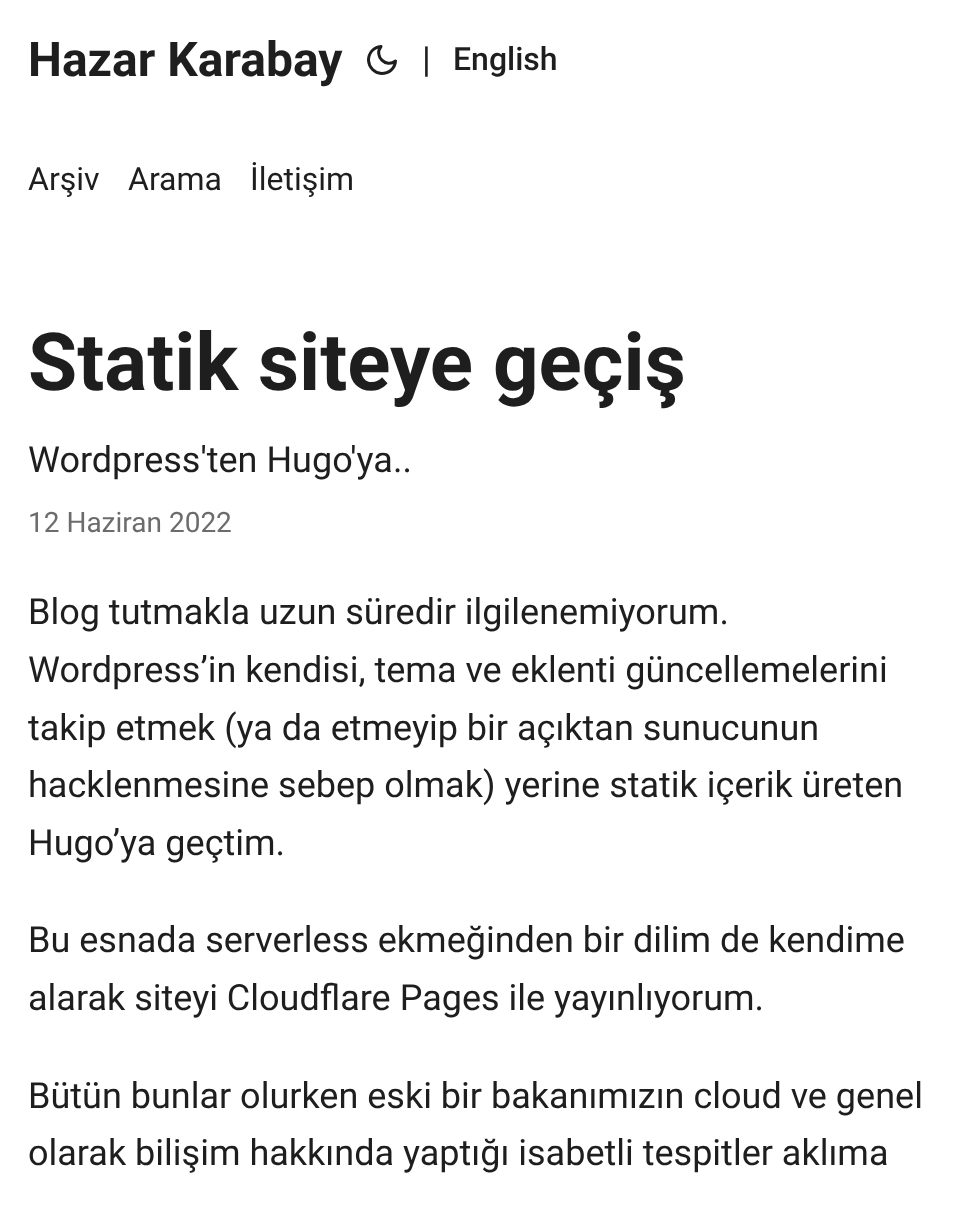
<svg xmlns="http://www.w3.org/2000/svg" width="973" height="1211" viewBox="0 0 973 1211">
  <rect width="100%" height="100%" fill="rgb(255,255,255)"/>
  <text x="28" y="76" font-family="Roboto" font-size="48" font-weight="bold" fill="rgb(30,30,30)">Hazar Karabay</text>
  <path d="M395.5 61C395 68.5 389 73.5 381.5 73.5C374.5 73 369 67.5 368.5 60.5C368.5 53 373.5 47 381 46.5C373.5 56 386 68.5 395.5 61Z" fill="none" stroke="rgb(30,30,30)" stroke-width="3" stroke-linecap="round" stroke-linejoin="round"/>
  <text x="422" y="72" font-family="Roboto" font-size="36" fill="rgb(30,30,30)">|</text>
  <text x="453" y="70" font-family="Roboto" font-size="32" font-weight="500" fill="rgb(30,30,30)">English</text>
  <g font-family="Roboto" font-size="32" fill="rgb(30,30,30)">
    <text x="28" y="190">Arşiv</text>
    <text x="128" y="190">Arama</text>
    <text x="250" y="190">İletişim</text>
  </g>
  <text x="28" y="390" font-family="Roboto" font-size="80" font-weight="bold" fill="rgb(30,30,30)">Statik siteye geçiş</text>
  <text x="28" y="472" font-family="Roboto" font-size="36" fill="rgb(30,30,30)">Wordpress'ten Hugo'ya..</text>
  <text x="28" y="532" font-family="Roboto" font-size="28" fill="rgb(108,108,108)">12 Haziran 2022</text>
  <g font-family="Roboto" font-size="36" fill="rgb(30,30,30)">
    <text>
      <tspan x="28" y="624">Blog tutmakla uzun süredir ilgilenemiyorum.</tspan>
      <tspan x="28" y="682">Wordpress’in kendisi, tema ve eklenti güncellemelerini</tspan>
      <tspan x="28" y="740">takip etmek (ya da etmeyip bir açıktan sunucunun</tspan>
      <tspan x="28" y="797">hacklenmesine sebep olmak) yerine statik içerik üreten</tspan>
      <tspan x="28" y="855">Hugo’ya geçtim.</tspan>
    </text>
    <text>
      <tspan x="28" y="952">Bu esnada serverless ekmeğinden bir dilim de kendime</tspan>
      <tspan x="28" y="1010">alarak siteyi Cloudflare Pages ile yayınlıyorum.</tspan>
    </text>
    <text>
      <tspan x="28" y="1108">Bütün bunlar olurken eski bir bakanımızın cloud ve genel</tspan>
      <tspan x="28" y="1165">olarak bilişim hakkında yaptığı isabetli tespitler aklıma</tspan>
    </text>
  </g>
</svg>
